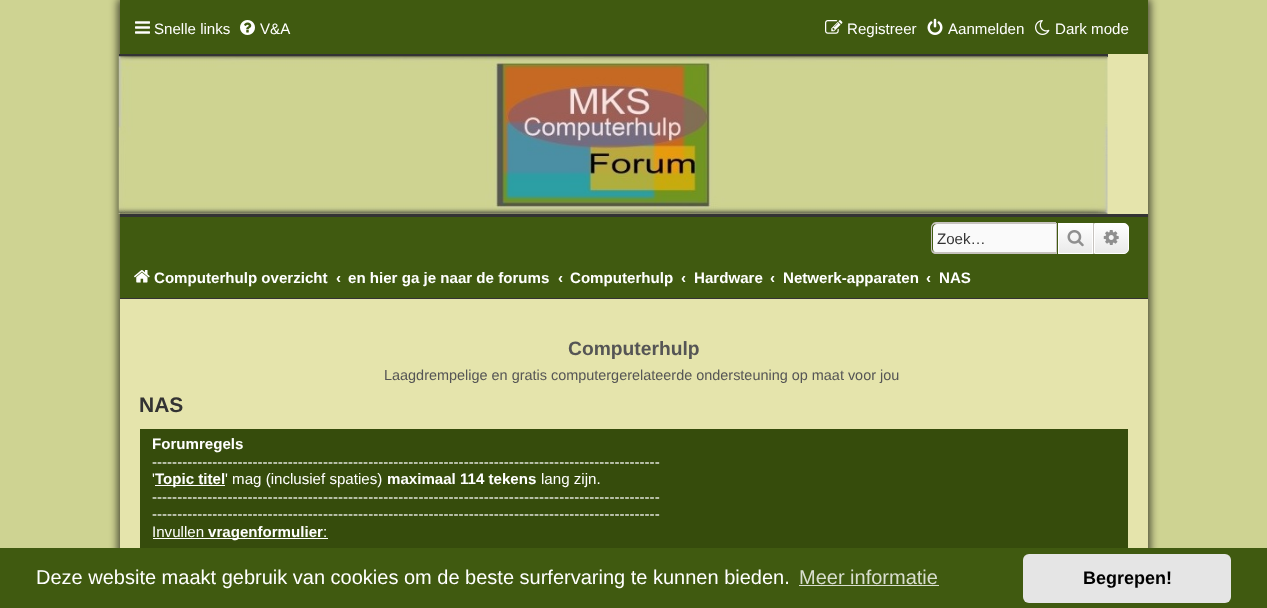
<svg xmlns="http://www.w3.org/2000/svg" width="1267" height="608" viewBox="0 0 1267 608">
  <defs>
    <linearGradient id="g1" gradientUnits="userSpaceOnUse" x1="1075" y1="223" x2="1075" y2="254"><stop offset="0" stop-color="rgb(255,255,255)"/><stop offset="1" stop-color="rgb(233,233,233)"/></linearGradient>
    <linearGradient id="g2" gradientUnits="userSpaceOnUse" x1="1111" y1="223" x2="1111" y2="254"><stop offset="0" stop-color="rgb(255,255,255)"/><stop offset="1" stop-color="rgb(233,233,233)"/></linearGradient>
  </defs>
  <rect width="100%" height="100%" fill="rgb(206,211,146)"/>
  <rect x="118" y="-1" width="1032" height="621" fill="rgba(2,2,2,0.7)" filter="blur(4px)"/>
  <rect x="120" y="54" width="1028" height="494" fill="rgb(229,228,172)"/>
  <rect x="120" y="0" width="1028" height="54" fill="rgb(64,90,16)"/>
  <image x="135" y="21" width="15" height="13" href="pic1.png"/>
  <text x="154" y="34" font-family="Liberation Sans" font-size="15.1" fill="rgb(255,255,255)">Snelle links</text>
  <image x="240" y="20" width="15" height="15" href="pic2.png"/>
  <text x="260" y="34" font-family="Liberation Sans" font-size="15.1" fill="rgb(255,255,255)">V&amp;A</text>
  <image x="825" y="20" width="18" height="14" href="pic3.png"/>
  <text x="847" y="34" font-family="Liberation Sans" font-size="15.1" fill="rgb(255,255,255)">Registreer</text>
  <image x="927" y="18" width="16" height="17" href="pic4.png"/>
  <text x="948" y="34" font-family="Liberation Sans" font-size="15.1" fill="rgb(255,255,255)">Aanmelden</text>
  <image x="1035" y="20" width="15" height="15" href="pic5.png"/>
  <text x="1055" y="34" font-family="Liberation Sans" font-size="15.1" fill="rgb(255,255,255)">Dark mode</text>
  <rect x="119" y="54" width="989" height="3" fill="rgb(51,51,51)"/>
  <image x="118" y="56" width="990" height="158" href="pic6.png"/>
  <rect x="120" y="217" width="1028" height="81" fill="rgb(64,90,16)"/>
  <rect x="120" y="214" width="1028" height="3" fill="rgb(51,51,51)"/>
  <rect x="120" y="298" width="1028" height="1" fill="rgb(51,51,51)"/>
  <path d="M937 224H1056V253H937C935 253 933 251 933 249V228C933 226 935 224 937 224Z" fill="rgb(250,250,250)"/>
  <path d="M936 222H1056V254H936C933 254 931 252 931 249V228C931 225 933 222 936 222ZM936 224H1056V252H936C934 252 932 251 932 249V228C932 225 934 224 936 224Z" fill="rgb(199,195,191)" fill-rule="evenodd"/>
  <text x="937" y="244" font-family="Liberation Sans" font-size="15.1" fill="rgb(51,51,51)">Zoek…</text>
  <rect x="1059" y="224" width="33" height="29" fill="url(#g1)"/>
  <rect x="1058.5" y="223.5" width="34" height="30" fill="none" stroke="rgb(255,255,255)"/>
  <rect x="1093" y="223" width="1" height="31" fill="rgb(199,195,191)"/>
  <rect x="1056" y="223" width="1" height="31" fill="rgb(199,195,191)"/>
  <image x="1067" y="230" width="17" height="17" href="pic7.png"/>
  <path d="M1094.5 223.5H1124C1126.5 223.5 1128.5 225.5 1128.5 228V249C1128.5 251.5 1126.5 253.5 1124 253.5H1094.5Z" fill="url(#g2)" stroke="rgb(255,255,255)"/>
  <image x="1103" y="230" width="16" height="15" href="pic8.png"/>
  <image x="134" y="270" width="16" height="13" href="pic9.png"/>
  <g font-family="Liberation Sans" font-size="15.1" font-weight="bold" fill="rgb(255,255,255)">
    <text x="154" y="283">Computerhulp overzicht</text>
    <text x="336" y="283">‹</text>
    <text x="348" y="283">en hier ga je naar de forums</text>
    <text x="558" y="283">‹</text>
    <text x="570" y="283">Computerhulp</text>
    <text x="681" y="283">‹</text>
    <text x="694" y="283">Hardware</text>
    <text x="770" y="283">‹</text>
    <text x="783" y="283">Netwerk-apparaten</text>
    <text x="926" y="283">‹</text>
    <text x="939" y="283">NAS</text>
  </g>
  <text x="568" y="355" font-family="Liberation Sans" font-size="19.25" font-weight="bold" fill="rgb(85,85,85)">Computerhulp</text>
  <text x="384" y="380" font-family="Liberation Sans" font-size="14.45" fill="rgb(85,85,85)">Laagdrempelige en gratis computergerelateerde ondersteuning op maat voor jou</text>
  <text x="139" y="412" font-family="Liberation Sans" font-size="21" font-weight="bold" fill="rgb(51,51,51)">NAS</text>
  <rect x="140" y="429" width="988" height="119" fill="rgb(54,76,12)"/>
  <text x="152" y="449" font-family="Liberation Sans" font-size="15.1" font-weight="bold" fill="rgb(255,255,255)">Forumregels</text>
  <g font-family="Liberation Sans" font-size="15.1" fill="rgb(255,255,255)">
    <text>
      <tspan x="152" y="467">-----------------------------------------------------------------------------------------------------</tspan>
      <tspan x="152" y="484">'</tspan>
    </text>
  </g>
  <rect x="155" y="485" width="70" height="1" fill="rgb(255,255,255)"/>
  <text x="155" y="484" font-family="Liberation Sans" font-size="15.1" font-weight="bold" fill="rgb(255,255,255)">Topic titel</text>
  <text x="225" y="484" font-family="Liberation Sans" font-size="15.1" fill="rgb(255,255,255)">' mag (inclusief spaties)</text>
  <text x="387" y="484" font-family="Liberation Sans" font-size="15.1" font-weight="bold" fill="rgb(255,255,255)">maximaal 114 tekens</text>
  <g font-family="Liberation Sans" font-size="15.1" fill="rgb(255,255,255)">
    <text x="541" y="484">lang zijn.</text>
    <text>
      <tspan x="152" y="502">-----------------------------------------------------------------------------------------------------</tspan>
      <tspan x="152" y="519">-----------------------------------------------------------------------------------------------------</tspan>
      <tspan x="152" y="537">Invullen</tspan>
    </text>
  </g>
  <rect x="153" y="538" width="175" height="1" fill="rgb(255,255,255)"/>
  <text x="208" y="537" font-family="Liberation Sans" font-size="15.1" font-weight="bold" fill="rgb(255,255,255)">vragenformulier</text>
  <text x="323" y="537" font-family="Liberation Sans" font-size="15.1" fill="rgb(255,255,255)">:</text>
  <rect x="0" y="548" width="1267" height="60" fill="rgb(64,90,16)"/>
  <text x="36" y="584" font-family="Liberation Sans" font-size="20" fill="rgb(255,255,255)">Deze website maakt gebruik van cookies om de beste surfervaring te kunnen bieden.</text>
  <text x="799" y="584" font-family="Liberation Sans" font-size="20" fill="rgb(217,222,207)">Meer informatie</text>
  <rect x="799" y="585" width="140" height="1" fill="rgb(217,222,207)"/>
  <rect x="1023" y="554" width="208" height="49" rx="6" fill="rgb(229,229,229)"/>
  <text x="1083" y="584" font-family="Liberation Sans" font-size="18" font-weight="bold" fill="rgb(0,0,0)">Begrepen!</text>
</svg>
